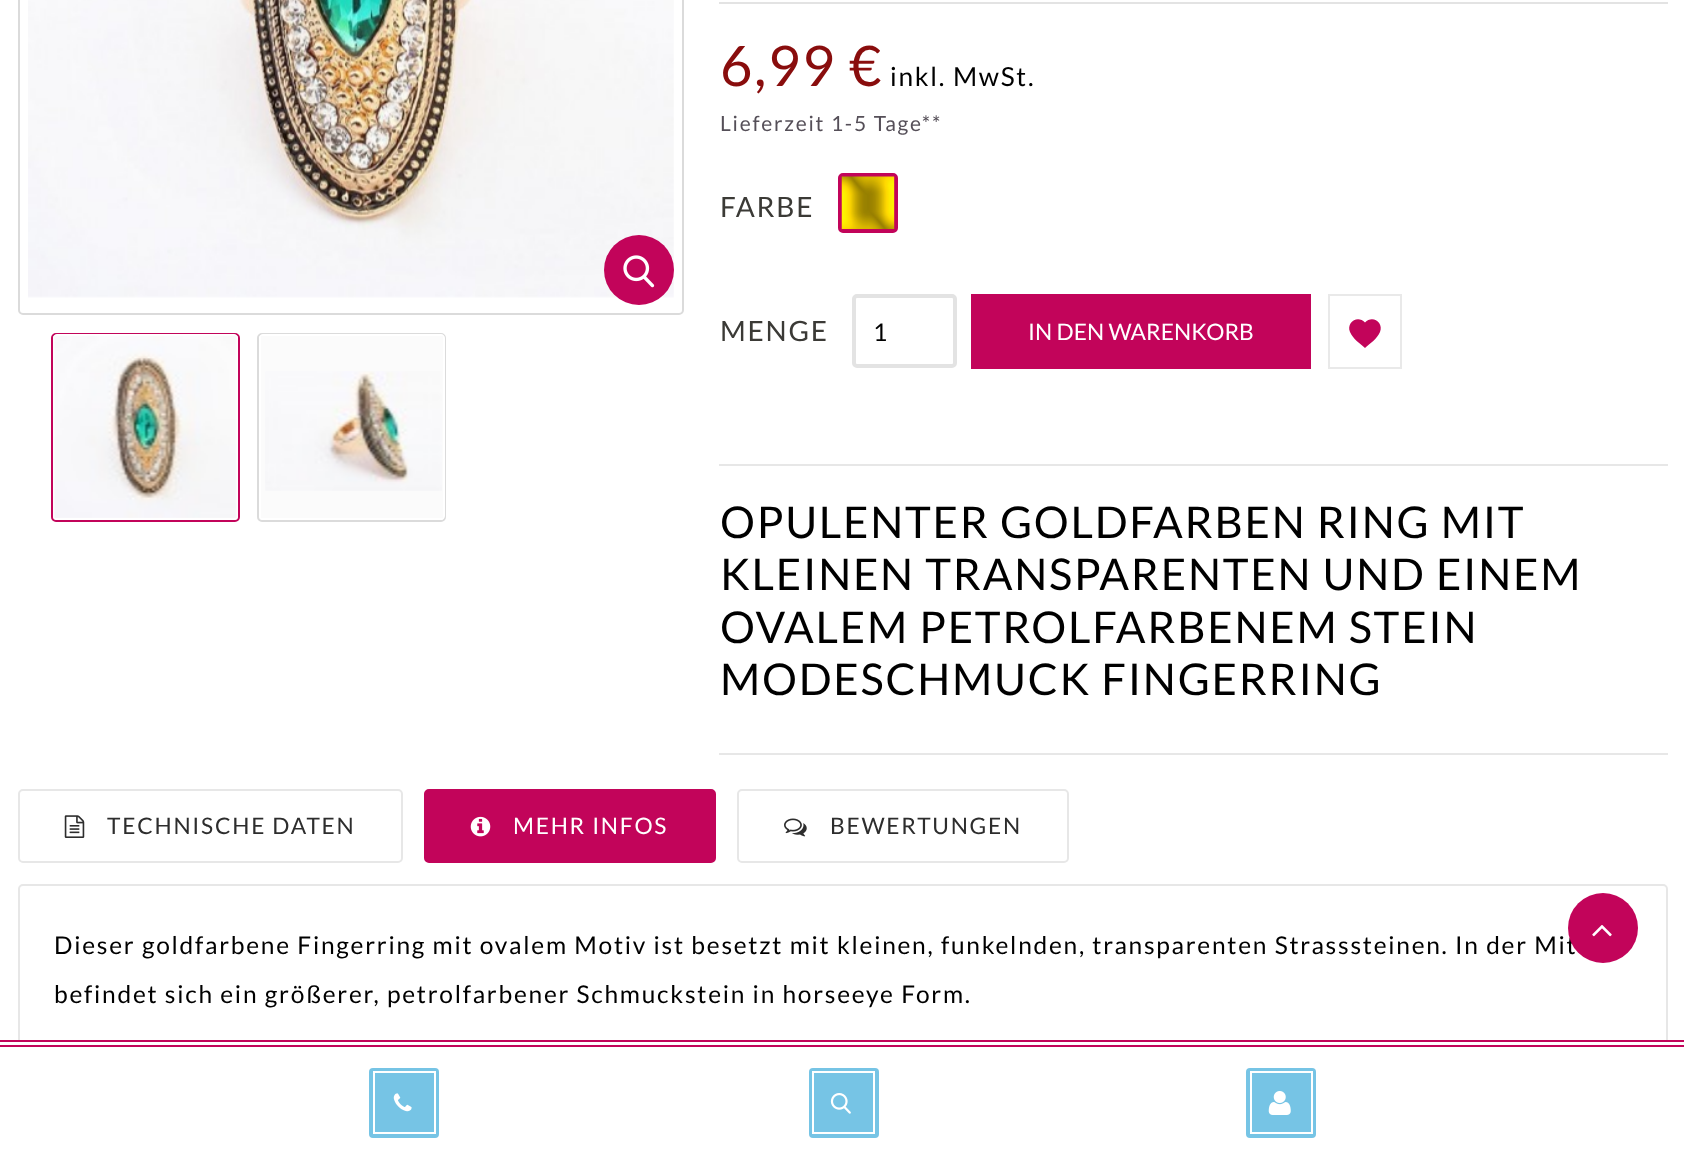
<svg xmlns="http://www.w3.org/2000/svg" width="1684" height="1158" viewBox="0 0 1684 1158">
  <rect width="100%" height="100%" fill="rgb(255,255,255)"/>
  <rect x="19" y="-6" width="664" height="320" rx="4" fill="none" stroke="rgb(219,219,219)" stroke-width="2"/>
  <image x="28" y="0" width="646" height="298" href="pic1.png"/>
  <circle cx="639" cy="270" r="35" fill="rgb(194,4,90)"/>
  <image x="623" y="255" width="32" height="33" href="pic2.png"/>
  <rect x="52" y="334" width="187" height="187" rx="4" fill="rgb(251,251,251)" stroke="rgb(194,4,90)" stroke-width="2"/>
  <path d="M57 334C55 334 53 336 53 338V516C53 518 55 520 57 520H234C236 520 238 518 238 516V338C238 336 236 334 234 334ZM55 336V518H236V336Z" fill="rgb(255,255,255)" fill-rule="evenodd"/>
  <image x="53" y="335" width="184" height="183" href="pic3.png"/>
  <rect x="258" y="334" width="187" height="187" rx="4" fill="rgb(251,251,251)" stroke="rgb(219,219,219)" stroke-width="2"/>
  <path d="M263 334C261 334 259 336 259 338V516C259 518 261 520 263 520H441C443 520 445 518 445 516V338C445 336 443 334 441 334ZM261 336V518H443V336Z" fill="rgb(255,255,255)" fill-rule="evenodd"/>
  <image x="265" y="371" width="177" height="120" href="pic4.png"/>
  <rect x="719" y="2" width="949" height="2" fill="rgb(227,227,227)"/>
  <text x="720" y="86" font-family="Lato" font-size="56" letter-spacing="1.75" fill="rgb(137,13,13)">6,99 €</text>
  <text x="890" y="86" font-family="Lato" font-size="26.25" letter-spacing="1.75" fill="rgb(0,0,0)">inkl. MwSt.</text>
  <text x="720" y="131" font-family="Lato" font-size="21" letter-spacing="1.75" fill="rgb(85,79,88)">Lieferzeit 1-5 Tage**</text>
  <text x="720" y="217" font-family="Lato" font-size="28" letter-spacing="1.75" fill="rgb(59,58,54)">FARBE</text>
  <rect x="840" y="175" width="56" height="56" rx="3" fill="none" stroke="rgb(194,4,90)" stroke-width="4"/>
  <image x="841" y="176" width="54" height="53" href="pic5.png"/>
  <text x="720" y="341" font-family="Lato" font-size="28" letter-spacing="1.75" fill="rgb(59,58,54)">MENGE</text>
  <rect x="854" y="296" width="101" height="70" rx="3" fill="none" stroke="rgb(227,227,227)" stroke-width="4"/>
  <text x="873" y="341" font-family="Lato" font-size="24.5" fill="rgb(0,0,0)">1</text>
  <rect x="971" y="294" width="340" height="75" fill="rgb(194,4,90)"/>
  <text x="1028" y="340" font-family="Lato" font-size="22.75" fill="rgb(255,255,255)">IN DEN WARENKORB</text>
  <rect x="1329" y="295" width="72" height="73" fill="none" stroke="rgb(233,233,233)" stroke-width="2"/>
  <path d="M1365 348C1360 343.5 1353 339 1350 332C1346 322 1358 314.5 1365 322.5C1372 314.5 1384 322 1380 332C1377 339 1370 343.5 1365 348Z" fill="rgb(194,4,90)"/>
  <rect x="719" y="464" width="949" height="2" fill="rgb(231,231,231)"/>
  <rect x="719" y="753" width="949" height="2" fill="rgb(231,231,231)"/>
  <g font-family="Lato" font-size="43.75" letter-spacing="1.75" fill="rgb(0,0,0)">
    <text>
      <tspan x="720" y="538">OPULENTER GOLDFARBEN RING MIT</tspan>
      <tspan x="720" y="590">KLEINEN TRANSPARENTEN UND EINEM</tspan>
      <tspan x="720" y="643">OVALEM PETROLFARBENEM STEIN</tspan>
      <tspan x="720" y="695">MODESCHMUCK FINGERRING</tspan>
    </text>
  </g>
  <rect x="19" y="790" width="383" height="72" rx="4" fill="none" stroke="rgb(231,231,231)" stroke-width="2"/>
  <image x="64" y="815" width="21" height="23" href="pic6.png"/>
  <text x="107" y="834" font-family="Lato" font-size="22.75" letter-spacing="1.75" fill="rgb(45,45,45)">TECHNISCHE DATEN</text>
  <rect x="425" y="790" width="290" height="72" rx="4" fill="rgb(194,4,90)" stroke="rgb(194,4,90)" stroke-width="2"/>
  <image x="470" y="816" width="21" height="21" href="pic7.png"/>
  <text x="513" y="834" font-family="Lato" font-size="22.75" letter-spacing="1.75" fill="rgb(255,255,255)">MEHR INFOS</text>
  <rect x="738" y="790" width="330" height="72" rx="4" fill="none" stroke="rgb(231,231,231)" stroke-width="2"/>
  <image x="784" y="818" width="23" height="19" href="pic8.png"/>
  <text x="830" y="834" font-family="Lato" font-size="22.75" letter-spacing="1.75" fill="rgb(45,45,45)">BEWERTUNGEN</text>
  <rect x="19" y="885" width="1648" height="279" rx="4" fill="none" stroke="rgb(231,231,231)" stroke-width="2"/>
  <g font-family="Lato" font-size="24.5" letter-spacing="1.75" fill="rgb(0,0,0)">
    <text x="54" y="954">Dieser goldfarbene Fingerring mit ovalem Motiv ist besetzt mit kleinen, funkelnden, transparenten Strasssteinen. In der Mit</text>
    <text x="54" y="1003">befindet sich ein größerer, petrolfarbener Schmuckstein in horseeye Form.</text>
  </g>
  <circle cx="1603" cy="928" r="35" fill="rgb(194,4,90)"/>
  <image x="1592" y="925" width="20" height="12" href="pic9.png"/>
  <rect x="18" y="1042" width="1650" height="116" fill="rgb(255,255,255)"/>
  <rect x="0" y="1040" width="1684" height="2" fill="rgb(194,4,90)"/>
  <rect x="0" y="1045" width="1684" height="2" fill="rgb(194,4,90)"/>
  <rect x="369" y="1068" width="70" height="70" rx="4" fill="rgb(118,196,229)"/>
  <image x="393" y="1093" width="19" height="19" href="pic10.png"/>
  <rect x="374" y="1072" width="61" height="61" fill="none" stroke="rgb(255,255,255)" stroke-width="2"/>
  <rect x="809" y="1068" width="70" height="70" rx="4" fill="rgb(118,196,229)"/>
  <image x="830" y="1093" width="21" height="21" href="pic11.png"/>
  <rect x="813" y="1072" width="61" height="61" fill="none" stroke="rgb(255,255,255)" stroke-width="2"/>
  <rect x="1246" y="1068" width="70" height="70" rx="4" fill="rgb(118,196,229)"/>
  <image x="1268" y="1091" width="23" height="24" href="pic12.png"/>
  <rect x="1251" y="1072" width="61" height="61" fill="none" stroke="rgb(255,255,255)" stroke-width="2"/>
</svg>
